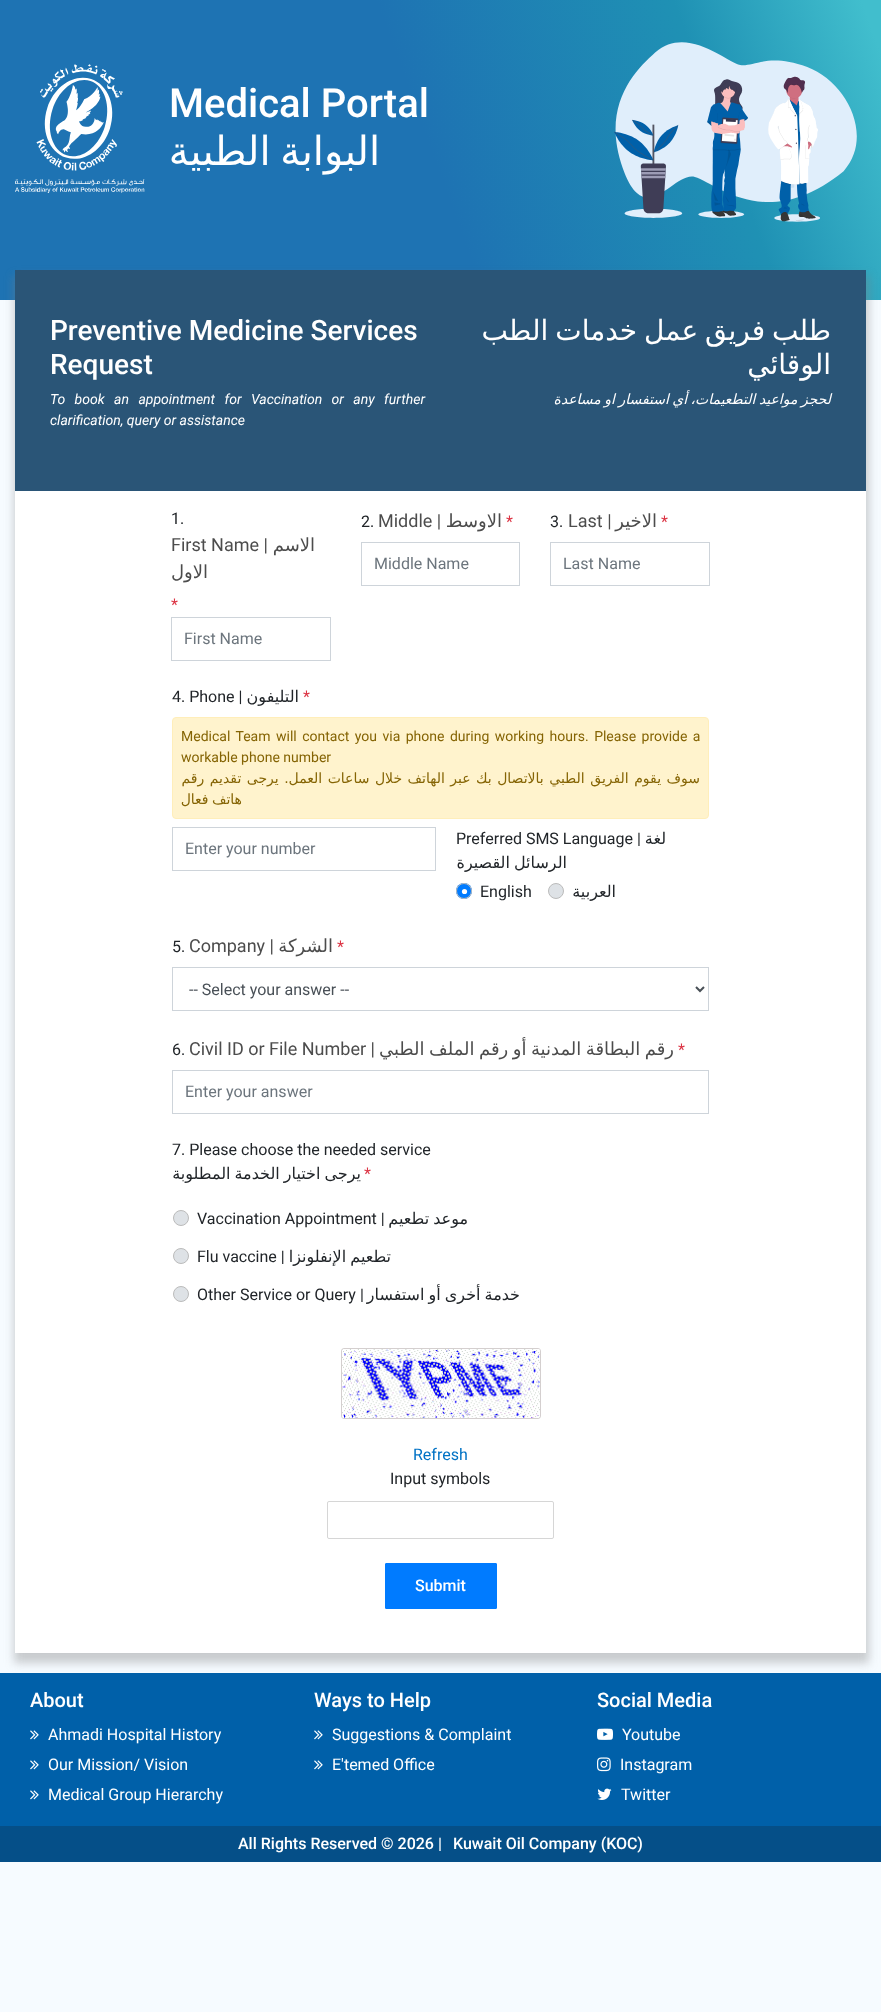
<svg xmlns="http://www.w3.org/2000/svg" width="881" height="2012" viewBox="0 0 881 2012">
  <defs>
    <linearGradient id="g1" gradientUnits="userSpaceOnUse" x1="878" y1="-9" x2="3.4" y2="309"><stop offset="0.02" stop-color="rgb(65,190,205)"/><stop offset="0.21" stop-color="rgb(31,145,180)"/><stop offset="0.51" stop-color="rgb(30,115,179)"/><stop offset="0.83" stop-color="rgb(30,115,179)"/></linearGradient>
  </defs>
  <rect width="100%" height="100%" fill="rgb(246,251,255)"/>
  <rect x="0" y="0" width="881" height="300" fill="url(#g1)"/>
  <image x="15" y="64" width="130" height="129" href="pic1.png"/>
  <text x="169" y="117" font-family="Roboto" font-size="40" font-weight="500" fill="rgb(255,255,255)">Medical Portal</text>
  <text x="380" y="165" word-spacing="-3" font-family="DejaVu Sans" font-size="40" direction="rtl" fill="rgb(255,255,255)">البوابة الطبية</text>
  <image x="614" y="42" width="243" height="180" href="pic2.png"/>
  <rect x="14" y="276" width="855" height="1387" fill="rgba(125,125,125,0.38)" filter="blur(5px)"/>
  <rect x="15" y="491" width="851" height="1162" fill="rgb(255,255,255)"/>
  <rect x="15" y="270" width="851" height="221" fill="rgb(42,85,119)"/>
  <g font-family="Roboto" font-size="28" font-weight="500" fill="rgb(255,255,255)">
    <text>
      <tspan x="50" y="340">Preventive Medicine Services</tspan>
      <tspan x="50" y="374">Request</tspan>
    </text>
  </g>
  <g font-family="Roboto" font-size="14" font-style="italic" fill="rgb(255,255,255)">
    <text>
      <tspan x="50" y="404" word-spacing="6">To book an appointment for Vaccination or any further</tspan>
      <tspan x="50" y="425">clarification, query or assistance</tspan>
    </text>
  </g>
  <g font-family="DejaVu Sans" font-size="28" direction="rtl" fill="rgb(255,255,255)">
    <text>
      <tspan x="831" y="340" word-spacing="-2">طلب فريق عمل خدمات الطب</tspan>
      <tspan x="831" y="374">الوقائي</tspan>
    </text>
  </g>
  <text x="831" y="404" word-spacing="-1" font-family="DejaVu Sans" font-size="14" font-style="italic" direction="rtl" fill="rgb(255,255,255)">لحجز مواعيد التطعيمات، أي استفسار او مساعدة</text>
  <text x="171" y="524" font-family="Roboto" font-size="16" fill="rgb(33,37,41)">1.</text>
  <text x="171" y="551" font-family="Roboto" font-size="18" fill="rgb(76,76,76)">First Name |</text>
  <g font-family="DejaVu Sans" font-size="18" direction="rtl" fill="rgb(76,76,76)">
    <text x="315" y="551">الاسم</text>
    <text x="208" y="578">الاول</text>
  </g>
  <text x="171" y="610" font-family="Roboto" font-size="16" fill="rgb(220,53,69)">*</text>
  <rect x="171.5" y="617.5" width="159" height="43" fill="none" stroke="rgb(206,212,218)"/>
  <text x="184" y="644" font-family="Roboto" font-size="16" fill="rgb(108,117,125)">First Name</text>
  <text x="361" y="527" font-family="Roboto" font-size="16" fill="rgb(33,37,41)">2.</text>
  <text x="378" y="527" font-family="Roboto" font-size="18" fill="rgb(76,76,76)">Middle |</text>
  <text x="502" y="527" font-family="DejaVu Sans" font-size="18" direction="rtl" fill="rgb(76,76,76)">الاوسط</text>
  <text x="506" y="527" font-family="Roboto" font-size="16" fill="rgb(220,53,69)">*</text>
  <rect x="361.5" y="542.5" width="158" height="43" fill="none" stroke="rgb(206,212,218)"/>
  <text x="374" y="569" font-family="Roboto" font-size="16" fill="rgb(108,117,125)">Middle Name</text>
  <text x="550" y="527" font-family="Roboto" font-size="16" fill="rgb(33,37,41)">3.</text>
  <text x="568" y="527" font-family="Roboto" font-size="18" fill="rgb(76,76,76)">Last |</text>
  <text x="657" y="527" font-family="DejaVu Sans" font-size="18" direction="rtl" fill="rgb(76,76,76)">الاخير</text>
  <text x="661" y="527" font-family="Roboto" font-size="16" fill="rgb(220,53,69)">*</text>
  <rect x="550.5" y="542.5" width="159" height="43" fill="none" stroke="rgb(206,212,218)"/>
  <text x="563" y="569" font-family="Roboto" font-size="16" fill="rgb(108,117,125)">Last Name</text>
  <text x="172" y="702" font-family="Roboto" font-size="16" fill="rgb(33,37,41)">4. Phone |</text>
  <text x="299" y="702" font-family="DejaVu Sans" font-size="16" direction="rtl" fill="rgb(33,37,41)">التليفون</text>
  <text x="303" y="702" font-family="Roboto" font-size="16" fill="rgb(220,53,69)">*</text>
  <rect x="172.5" y="717.5" width="536" height="101" rx="3.5" fill="rgb(255,243,205)" stroke="rgb(255,238,186)"/>
  <g font-family="Roboto" font-size="14" fill="rgb(133,100,4)">
    <text>
      <tspan x="181" y="741" word-spacing="2">Medical Team will contact you via phone during working hours. Please provide a</tspan>
      <tspan x="181" y="762">workable phone number</tspan>
    </text>
  </g>
  <g font-family="DejaVu Sans" font-size="14" direction="rtl" fill="rgb(133,100,4)">
    <text x="700" y="783" word-spacing="1">سوف يقوم الفريق الطبي بالاتصال بك عبر الهاتف خلال ساعات العمل. يرجى تقديم رقم</text>
    <text x="242" y="804" word-spacing="-1">هاتف فعال</text>
  </g>
  <rect x="172.5" y="827.5" width="263" height="43" fill="none" stroke="rgb(206,212,218)"/>
  <text x="185" y="854" font-family="Roboto" font-size="16" fill="rgb(108,117,125)">Enter your number</text>
  <text x="456" y="844" font-family="Roboto" font-size="16" fill="rgb(33,37,41)">Preferred SMS Language |</text>
  <g font-family="DejaVu Sans" font-size="16" direction="rtl" fill="rgb(33,37,41)">
    <text x="666" y="844">لغة</text>
    <text x="567" y="868" word-spacing="-1">الرسائل القصيرة</text>
  </g>
  <circle cx="464" cy="891" r="8" fill="rgb(0,123,255)"/>
  <circle cx="464.5" cy="891.5" r="2.6" fill="rgb(255,255,255)"/>
  <circle cx="464" cy="891" r="7.5" fill="none" stroke="rgb(187,187,187)"/>
  <text x="480" y="897" font-family="Roboto" font-size="16" fill="rgb(33,37,41)">English</text>
  <circle cx="556" cy="891" r="7.5" fill="rgb(222,226,230)" stroke="rgb(187,187,187)"/>
  <text x="616" y="897" font-family="DejaVu Sans" font-size="16" direction="rtl" fill="rgb(33,37,41)">العربية</text>
  <text x="172" y="952" font-family="Roboto" font-size="16" fill="rgb(33,37,41)">5.</text>
  <text x="189" y="952" font-family="Roboto" font-size="18" fill="rgb(76,76,76)">Company |</text>
  <text x="333" y="952" font-family="DejaVu Sans" font-size="18" direction="rtl" fill="rgb(76,76,76)">الشركة</text>
  <text x="337" y="952" font-family="Roboto" font-size="16" fill="rgb(220,53,69)">*</text>
  <rect x="172.5" y="967.5" width="536" height="43" fill="none" stroke="rgb(206,212,218)"/>
  <path d="M696 987L700 991L704 987" fill="none" stroke="rgb(73,80,87)" stroke-width="2"/>
  <text x="189" y="995" font-family="Roboto" font-size="16" fill="rgb(73,80,87)">-- Select your answer --</text>
  <text x="172" y="1055" font-family="Roboto" font-size="16" fill="rgb(33,37,41)">6.</text>
  <text x="189" y="1055" font-family="Roboto" font-size="18" fill="rgb(76,76,76)">Civil ID or File Number |</text>
  <text x="674" y="1055" word-spacing="-1.25" font-family="DejaVu Sans" font-size="18" direction="rtl" fill="rgb(76,76,76)">رقم البطاقة المدنية أو رقم الملف الطبي</text>
  <text x="678" y="1055" font-family="Roboto" font-size="16" fill="rgb(220,53,69)">*</text>
  <rect x="172.5" y="1070.5" width="536" height="43" fill="none" stroke="rgb(206,212,218)"/>
  <text x="185" y="1097" font-family="Roboto" font-size="16" fill="rgb(108,117,125)">Enter your answer</text>
  <text x="172" y="1155" font-family="Roboto" font-size="16" fill="rgb(33,37,41)">7. Please choose the needed service</text>
  <text x="361" y="1179" word-spacing="-1" font-family="DejaVu Sans" font-size="16" direction="rtl" fill="rgb(33,37,41)">يرجى اختيار الخدمة المطلوبة</text>
  <text x="364" y="1179" font-family="Roboto" font-size="16" fill="rgb(220,53,69)">*</text>
  <circle cx="181" cy="1218" r="7.5" fill="rgb(222,226,230)" stroke="rgb(187,187,187)"/>
  <text x="197" y="1224" font-family="Roboto" font-size="16" fill="rgb(33,37,41)">Vaccination Appointment |</text>
  <text x="468" y="1224" word-spacing="-1" font-family="DejaVu Sans" font-size="16" direction="rtl" fill="rgb(33,37,41)">موعد تطعيم</text>
  <circle cx="181" cy="1256" r="7.5" fill="rgb(222,226,230)" stroke="rgb(187,187,187)"/>
  <text x="197" y="1262" font-family="Roboto" font-size="16" fill="rgb(33,37,41)">Flu vaccine |</text>
  <text x="391" y="1262" word-spacing="-1" font-family="DejaVu Sans" font-size="16" direction="rtl" fill="rgb(33,37,41)">تطعيم الإنفلونزا</text>
  <circle cx="181" cy="1294" r="7.5" fill="rgb(222,226,230)" stroke="rgb(187,187,187)"/>
  <text x="197" y="1300" font-family="Roboto" font-size="16" fill="rgb(33,37,41)">Other Service or Query |</text>
  <text x="520" y="1300" word-spacing="-1" font-family="DejaVu Sans" font-size="16" direction="rtl" fill="rgb(33,37,41)">خدمة أخرى أو استفسار</text>
  <rect x="341.5" y="1348.5" width="199" height="70" rx="2.5" fill="none" stroke="rgb(212,207,207)"/>
  <image x="342" y="1349" width="198" height="69" href="pic3.png"/>
  <text x="413" y="1460" font-family="Roboto" font-size="16" fill="rgb(0,114,197)">Refresh</text>
  <text x="390" y="1484" font-family="Roboto" font-size="16" fill="rgb(33,37,41)">Input symbols</text>
  <rect x="327.5" y="1501.5" width="226" height="37" rx="1.5" fill="none" stroke="rgb(214,214,214)"/>
  <rect x="385.5" y="1563.5" width="111" height="45" rx="0.5" fill="rgb(0,123,255)" stroke="rgb(0,123,255)"/>
  <text x="415" y="1591" font-family="Roboto" font-size="16" font-weight="500" fill="rgb(255,255,255)">Submit</text>
  <rect x="0" y="1673" width="881" height="153" fill="rgb(0,96,169)"/>
  <text x="30" y="1707" font-family="Roboto" font-size="20" font-weight="500" fill="rgb(255,255,255)">About</text>
  <image x="30" y="1730" width="9" height="10" href="pic4.png"/>
  <text x="48" y="1740" font-family="Roboto" font-size="16" fill="rgb(255,255,255)">Ahmadi Hospital History</text>
  <image x="30" y="1760" width="9" height="10" href="pic4.png"/>
  <text x="48" y="1770" font-family="Roboto" font-size="16" fill="rgb(255,255,255)">Our Mission/ Vision</text>
  <image x="30" y="1790" width="9" height="10" href="pic4.png"/>
  <text x="48" y="1800" font-family="Roboto" font-size="16" fill="rgb(255,255,255)">Medical Group Hierarchy</text>
  <text x="314" y="1707" font-family="Roboto" font-size="20" font-weight="500" fill="rgb(255,255,255)">Ways to Help</text>
  <image x="314" y="1730" width="9" height="10" href="pic4.png"/>
  <text x="332" y="1740" font-family="Roboto" font-size="16" fill="rgb(255,255,255)">Suggestions &amp; Complaint</text>
  <image x="314" y="1760" width="9" height="10" href="pic4.png"/>
  <text x="332" y="1770" font-family="Roboto" font-size="16" fill="rgb(255,255,255)">E'temed Office</text>
  <text x="597" y="1707" font-family="Roboto" font-size="20" font-weight="500" fill="rgb(255,255,255)">Social Media</text>
  <image x="597" y="1728" width="16" height="12" href="pic5.png"/>
  <text x="622" y="1740" font-family="Roboto" font-size="16" fill="rgb(255,255,255)">Youtube</text>
  <image x="597" y="1757" width="14" height="15" href="pic6.png"/>
  <text x="620" y="1770" font-family="Roboto" font-size="16" fill="rgb(255,255,255)">Instagram</text>
  <image x="597" y="1788" width="15" height="12" href="pic7.png"/>
  <text x="621" y="1800" font-family="Roboto" font-size="16" fill="rgb(255,255,255)">Twitter</text>
  <rect x="0" y="1826" width="881" height="36" fill="rgb(5,79,136)"/>
  <g font-family="Roboto" font-size="16" font-weight="500" fill="rgb(255,255,255)">
    <text x="238" y="1849">All Rights Reserved © 2026 |</text>
    <text x="453" y="1849">Kuwait Oil Company (KOC)</text>
  </g>
</svg>
